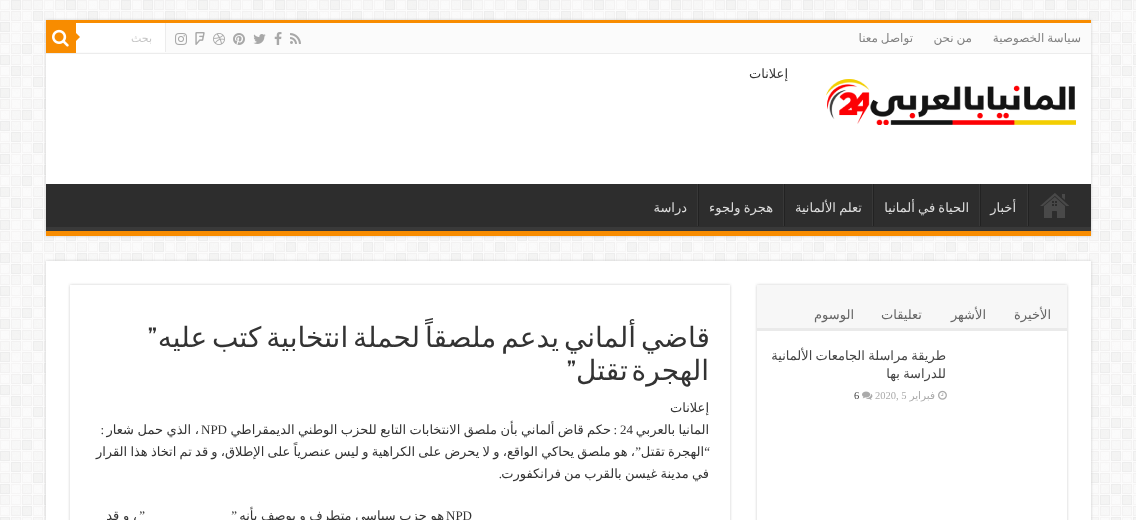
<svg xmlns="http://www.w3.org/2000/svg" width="1136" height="520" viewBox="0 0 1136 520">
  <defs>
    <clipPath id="clip1"><rect x="46" y="184" width="1045" height="47"/></clipPath>
    <clipPath id="clip2"><path d="M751 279H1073V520H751ZM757 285H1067V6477H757Z" clip-rule="evenodd"/></clipPath>
    <clipPath id="clip3"><path d="M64 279H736V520H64ZM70 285H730V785H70Z" clip-rule="evenodd"/></clipPath>
  </defs>
  <rect width="100%" height="100%" fill="rgb(255,255,255)"/>
  <image x="0" y="0" width="1136" height="520" href="pic1.png"/>
  <rect x="46" y="20" width="1045" height="216" fill="rgb(202,202,202)" filter="blur(1.5px)"/>
  <rect x="46" y="54" width="1045" height="130" fill="rgb(255,255,255)"/>
  <rect x="46" y="20" width="1045" height="3" fill="rgb(248,140,0)"/>
  <rect x="76" y="23" width="1015" height="30" fill="rgb(251,251,251)"/>
  <rect x="46" y="53" width="1045" height="1" fill="rgb(236,236,236)"/>
  <g font-family="DejaVu Sans" font-size="12" direction="rtl" fill="rgb(131,131,131)">
    <text x="1081" y="42" word-spacing="-1">سياسة الخصوصية</text>
    <text x="972" y="42" word-spacing="-1">من نحن</text>
    <text x="913" y="42" word-spacing="-1">تواصل معنا</text>
  </g>
  <image x="290" y="33" width="11" height="11" href="pic2.png"/>
  <image x="274" y="32" width="8" height="13" href="pic3.png"/>
  <image x="253" y="34" width="13" height="10" href="pic4.png"/>
  <image x="233" y="33" width="12" height="12" href="pic5.png"/>
  <image x="213" y="33" width="12" height="12" href="pic6.png"/>
  <image x="195" y="32" width="10" height="13" href="pic7.png"/>
  <image x="175" y="33" width="12" height="12" href="pic8.png"/>
  <rect x="76" y="23" width="89" height="29" fill="rgb(255,255,255)"/>
  <rect x="165" y="23" width="1" height="29" fill="rgb(236,236,236)"/>
  <text x="152" y="42" font-family="DejaVu Sans" font-size="11" direction="rtl" fill="rgb(197,197,197)">بحث</text>
  <rect x="46" y="23" width="30" height="30" fill="rgb(248,140,0)"/>
  <image x="52" y="29" width="17" height="18" href="pic9.png"/>
  <path d="M76 41V33L80 37Z" fill="rgb(248,140,0)"/>
  <text x="788" y="78" font-family="DejaVu Sans" font-size="13" direction="rtl" fill="rgb(51,51,51)">إعلانات</text>
  <image x="826" y="79" width="250" height="46" href="pic10.png"/>
  <rect x="46" y="184" width="1045" height="43" fill="rgb(45,45,45)"/>
  <g clip-path="url(#clip1)">
    <path d="M-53 85H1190V330H-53ZM45 178H1091V218C1091 219 1092 227 1090 227H45L44 226V178Z" fill="rgb(57,57,57)" fill-rule="evenodd"/>
  </g>
  <rect x="46" y="231" width="1045" height="5" fill="rgb(248,140,0)"/>
  <image x="1040" y="193" width="29" height="25" href="pic11.png"/>
  <rect x="1028" y="184" width="1" height="42" fill="rgb(34,34,34)"/>
  <rect x="1027" y="184" width="1" height="42" fill="rgb(56,56,56)"/>
  <text x="1016" y="212" font-family="DejaVu Sans" font-size="13" direction="rtl" fill="rgb(221,221,221)">أخبار</text>
  <rect x="980" y="184" width="1" height="42" fill="rgb(34,34,34)"/>
  <rect x="979" y="184" width="1" height="42" fill="rgb(56,56,56)"/>
  <text x="969" y="212" word-spacing="-0.9" font-family="DejaVu Sans" font-size="13" direction="rtl" fill="rgb(221,221,221)">الحياة في ألمانيا</text>
  <rect x="873" y="184" width="1" height="42" fill="rgb(34,34,34)"/>
  <rect x="872" y="184" width="1" height="42" fill="rgb(56,56,56)"/>
  <text x="862" y="212" word-spacing="-0.9" font-family="DejaVu Sans" font-size="13" direction="rtl" fill="rgb(221,221,221)">تعلم الألمانية</text>
  <rect x="784" y="184" width="1" height="42" fill="rgb(34,34,34)"/>
  <rect x="783" y="184" width="1" height="42" fill="rgb(56,56,56)"/>
  <text x="773" y="212" word-spacing="-0.9" font-family="DejaVu Sans" font-size="13" direction="rtl" fill="rgb(221,221,221)">هجرة ولجوء</text>
  <rect x="698" y="184" width="1" height="42" fill="rgb(34,34,34)"/>
  <rect x="697" y="184" width="1" height="42" fill="rgb(56,56,56)"/>
  <text x="687" y="212" font-family="DejaVu Sans" font-size="13" direction="rtl" fill="rgb(221,221,221)">دراسة</text>
  <rect x="46" y="261" width="1045" height="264" fill="rgb(202,202,202)" filter="blur(1.5px)"/>
  <rect x="46" y="261" width="1045" height="259" fill="rgb(255,255,255)"/>
  <g clip-path="url(#clip2)">
    <rect x="757" y="285" width="310" height="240" fill="rgb(202,202,202)" filter="blur(1.5px)"/>
  </g>
  <rect x="757" y="285" width="310" height="43" fill="rgb(247,247,247)"/>
  <rect x="757" y="328" width="310" height="3" fill="rgb(234,234,234)"/>
  <g font-family="DejaVu Sans" font-size="13" direction="rtl" fill="rgb(102,102,102)">
    <text x="1051" y="319">الأخيرة</text>
    <text x="986" y="319">الأشهر</text>
    <text x="922" y="319">تعليقات</text>
    <text x="854" y="319">الوسوم</text>
  </g>
  <g font-family="DejaVu Sans" font-size="13" direction="rtl" fill="rgb(68,68,68)">
    <text>
      <tspan x="946" y="360" word-spacing="-0.9">طريقة مراسلة الجامعات الألمانية</tspan>
      <tspan x="946" y="378" word-spacing="-0.9">للدراسة بها</tspan>
    </text>
  </g>
  <image x="938" y="390" width="9" height="10" href="pic12.png"/>
  <text x="935" y="399" font-family="DejaVu Sans" font-size="10.5" direction="rtl" fill="rgb(170,170,170)">فبراير</text>
  <text x="875" y="399" font-family="Liberation Serif" font-size="10.5" fill="rgb(170,170,170)">2020, 5</text>
  <image x="862" y="391" width="11" height="9" href="pic13.png"/>
  <text x="854" y="399" font-family="Liberation Serif" font-size="10.5" fill="rgb(68,68,68)">6</text>
  <g clip-path="url(#clip3)">
    <rect x="70" y="285" width="660" height="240" fill="rgb(202,202,202)" filter="blur(1.5px)"/>
  </g>
  <text x="710" y="347" word-spacing="-4" font-family="DejaVu Sans" font-size="28" direction="rtl" fill="rgb(51,51,51)">قاضي ألماني يدعم ملصقاً لحملة انتخابية كتب عليه</text>
  <text x="157" y="347" font-family="Bebas Neue" font-size="28" font-weight="bold" direction="rtl" fill="rgb(51,51,51)">”</text>
  <text x="709" y="380" word-spacing="-5" font-family="DejaVu Sans" font-size="28" direction="rtl" fill="rgb(51,51,51)">الهجرة تقتل</text>
  <text x="576" y="380" font-family="Bebas Neue" font-size="28" font-weight="bold" direction="rtl" fill="rgb(51,51,51)">”</text>
  <g font-family="DejaVu Sans" font-size="13" direction="rtl" fill="rgb(51,51,51)">
    <text>
      <tspan x="709" y="412">إعلانات</tspan>
      <tspan x="709" y="434" word-spacing="-0.9">المانيا بالعربي</tspan>
    </text>
  </g>
  <text x="620" y="434" font-family="Liberation Serif" font-size="13" fill="rgb(51,51,51)">24</text>
  <text x="611" y="434" word-spacing="-0.75" font-family="DejaVu Sans" font-size="13" direction="rtl" fill="rgb(51,51,51)">حكم قاض ألماني بأن ملصق الانتخابات التابع للحزب الوطني الديمقراطي</text>
  <text x="201" y="434" font-family="Liberation Serif" font-size="13" fill="rgb(51,51,51)">NPD</text>
  <text x="199" y="434" word-spacing="-0.5" font-family="DejaVu Sans" font-size="13" direction="rtl" fill="rgb(51,51,51)">، الذي حمل شعار</text>
  <g font-family="Liberation Serif" font-size="13" direction="rtl" fill="rgb(51,51,51)">
    <text x="104" y="434">:</text>
    <text x="617" y="434">:</text>
  </g>
  <g font-family="DejaVu Sans" font-size="13" direction="rtl" fill="rgb(51,51,51)">
    <text x="635" y="456" word-spacing="-0.9">، هو ملصق يحاكي الواقع، و لا يحرض على الكراهية و ليس عنصرياً على الإطلاق، و قد تم اتخاذ هذا القرار</text>
    <text x="704" y="456" word-spacing="-0.9">الهجرة تقتل</text>
  </g>
  <g font-family="Liberation Serif" font-size="13" direction="rtl" fill="rgb(51,51,51)">
    <text x="710" y="456">“</text>
    <text x="641" y="456">”</text>
  </g>
  <text x="709" y="478" word-spacing="-0.9" font-family="DejaVu Sans" font-size="13" direction="rtl" fill="rgb(51,51,51)">في مدينة غيسن بالقرب من فرانكفورت</text>
  <text x="502" y="478" font-family="Liberation Serif" font-size="13" direction="rtl" fill="rgb(51,51,51)">.</text>
  <text x="444" y="520" word-spacing="-0.5" font-family="DejaVu Sans" font-size="13" direction="rtl" fill="rgb(51,51,51)">هو حزب سياسي متطرف و يوصف بأنه</text>
  <text x="446" y="520" font-family="Liberation Serif" font-size="13" fill="rgb(51,51,51)">NPD</text>
  <g font-family="Liberation Serif" font-size="13" direction="rtl" fill="rgb(51,51,51)">
    <text x="237" y="520">”</text>
    <text x="145" y="520">”</text>
  </g>
  <text x="137" y="520" word-spacing="-0.5" font-family="DejaVu Sans" font-size="13" direction="rtl" fill="rgb(51,51,51)">، و قد</text>
</svg>
